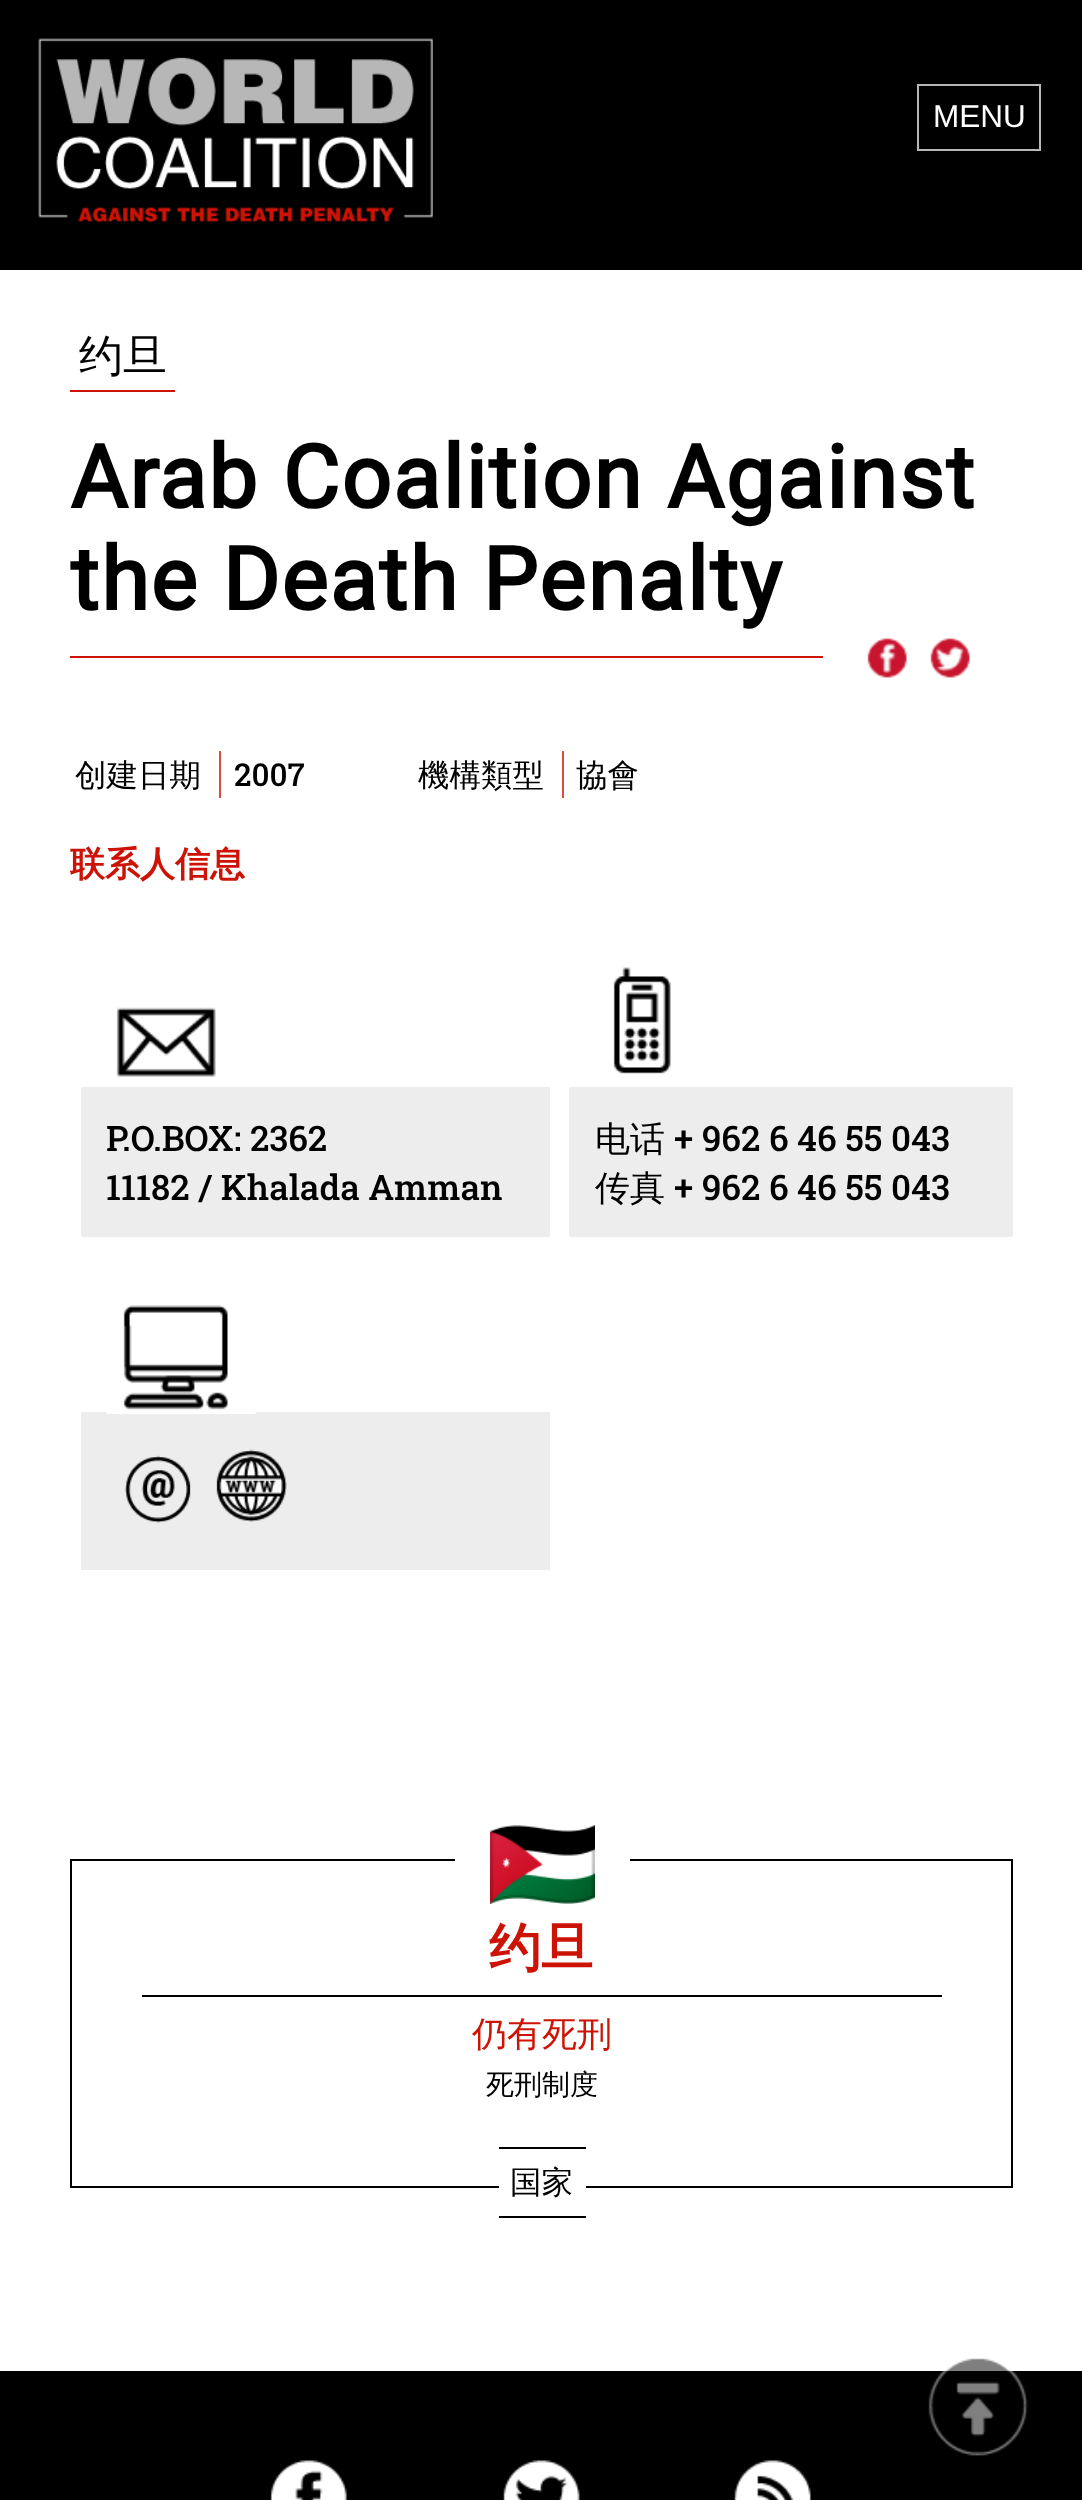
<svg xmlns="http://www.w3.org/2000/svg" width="1082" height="2500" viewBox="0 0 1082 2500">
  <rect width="100%" height="100%" fill="rgb(255,255,255)"/>
  <rect x="0" y="0" width="1082" height="270" fill="rgb(0,0,0)"/>
  <image x="38" y="38" width="395" height="185" href="pic1.png"/>
  <rect x="918" y="85" width="122" height="65" fill="none" stroke="rgb(183,183,183)" stroke-width="2"/>
  <text x="933" y="127" font-family="Liberation Sans" font-size="31.5" fill="rgb(255,255,255)">MENU</text>
  <rect x="70" y="390" width="105" height="2" fill="rgb(204,19,5)"/>
  <text x="79" y="371" font-family="WenQuanYi Zen Hei" font-size="44" font-weight="500" fill="rgb(0,0,0)">约旦</text>
  <rect x="70" y="656" width="753" height="2" fill="rgb(204,19,5)"/>
  <g font-family="Roboto" font-size="87.5" font-weight="bold" letter-spacing="1.75" fill="rgb(0,0,0)">
    <text>
      <tspan x="70" y="508">Arab Coalition Against</tspan>
      <tspan x="70" y="610">the Death Penalty</tspan>
    </text>
  </g>
  <image x="867" y="638" width="40" height="40" href="pic2.png"/>
  <image x="930" y="638" width="40" height="40" href="pic3.png"/>
  <rect x="219" y="751" width="2" height="47" fill="rgb(217,77,67)"/>
  <text x="75" y="786" font-family="WenQuanYi Zen Hei" font-size="31.5" font-weight="500" fill="rgb(0,0,0)">创建日期</text>
  <text x="234" y="786" font-family="Roboto Slab" font-size="31.5" font-weight="500" fill="rgb(0,0,0)">2007</text>
  <rect x="562" y="751" width="2" height="47" fill="rgb(217,77,67)"/>
  <g font-family="WenQuanYi Zen Hei" font-size="31.5" font-weight="500" fill="rgb(0,0,0)">
    <text x="418" y="786">機構類型</text>
    <text x="576" y="786">協會</text>
  </g>
  <text x="70" y="876" font-family="WenQuanYi Zen Hei" font-size="35" font-weight="bold" fill="rgb(204,19,5)">联系人信息</text>
  <rect x="81" y="1087" width="469" height="150" fill="rgb(237,237,237)"/>
  <image x="116" y="1007" width="100" height="70" href="pic4.png"/>
  <g font-family="Roboto Slab" font-size="35" font-weight="500" fill="rgb(0,0,0)">
    <text>
      <tspan x="106" y="1151">P.O.BOX: 2362</tspan>
      <tspan x="106" y="1200">11182 / Khalada Amman</tspan>
    </text>
  </g>
  <rect x="569" y="1087" width="444" height="150" fill="rgb(237,237,237)"/>
  <image x="613" y="967" width="58" height="107" href="pic5.png"/>
  <text x="595" y="1151" font-family="WenQuanYi Zen Hei" font-size="35" font-weight="500" fill="rgb(0,0,0)">电话</text>
  <text x="674" y="1151" font-family="Roboto Slab" font-size="35" font-weight="500" fill="rgb(0,0,0)">+ 962 6 46 55 043</text>
  <text x="595" y="1200" font-family="WenQuanYi Zen Hei" font-size="35" font-weight="500" fill="rgb(0,0,0)">传真</text>
  <text x="674" y="1200" font-family="Roboto Slab" font-size="35" font-weight="500" fill="rgb(0,0,0)">+ 962 6 46 55 043</text>
  <rect x="81" y="1412" width="469" height="158" fill="rgb(237,237,237)"/>
  <image x="106" y="1305" width="150" height="109" href="pic6.png"/>
  <image x="124" y="1455" width="67" height="68" href="pic7.png"/>
  <image x="216" y="1449" width="71" height="73" href="pic8.png"/>
  <rect x="71" y="1860" width="941" height="327" fill="none" stroke="rgb(0,0,0)" stroke-width="2"/>
  <rect x="455" y="1859" width="175" height="2" fill="rgb(255,255,255)"/>
  <image x="490" y="1825" width="105" height="79" href="pic9.png"/>
  <text x="489" y="1966" font-family="WenQuanYi Zen Hei" font-size="52" font-weight="bold" fill="rgb(204,19,5)">约旦</text>
  <rect x="142" y="1995" width="800" height="2" fill="rgb(0,0,0)"/>
  <text x="472" y="2046" font-family="WenQuanYi Zen Hei" font-size="35" font-weight="500" fill="rgb(204,19,5)">仍有死刑</text>
  <text x="486" y="2094" font-family="WenQuanYi Zen Hei" font-size="28" font-weight="500" fill="rgb(0,0,0)">死刑制度</text>
  <rect x="499" y="2186" width="87" height="2" fill="rgb(255,255,255)"/>
  <rect x="499" y="2147" width="87" height="2" fill="rgb(0,0,0)"/>
  <rect x="499" y="2216" width="87" height="2" fill="rgb(0,0,0)"/>
  <text x="510" y="2193" font-family="WenQuanYi Zen Hei" font-size="31.5" font-weight="500" fill="rgb(0,0,0)">国家</text>
  <rect x="0" y="2371" width="1082" height="129" fill="rgb(0,0,0)"/>
  <image x="928" y="2358" width="100" height="98" href="pic10.png"/>
  <image x="270" y="2460" width="77" height="40" href="pic11.png"/>
  <image x="503" y="2460" width="77" height="40" href="pic12.png"/>
  <image x="734" y="2460" width="77" height="40" href="pic13.png"/>
</svg>
